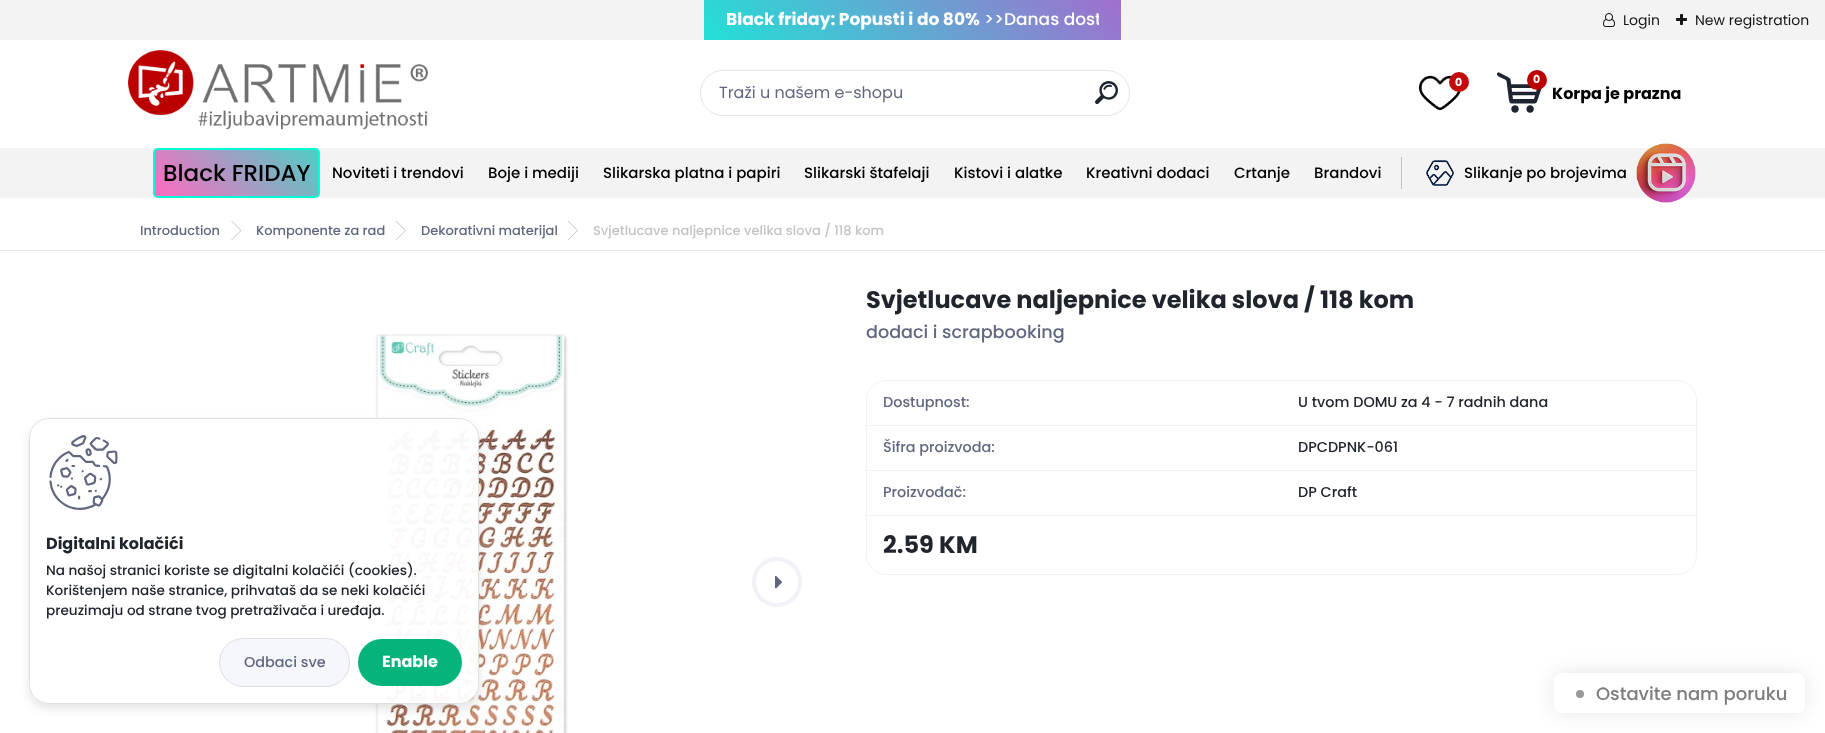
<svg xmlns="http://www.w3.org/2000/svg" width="1825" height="733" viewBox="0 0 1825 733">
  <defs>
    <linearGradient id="g1" gradientUnits="userSpaceOnUse" x1="1081" y1="537" x2="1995" y2="-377"><stop offset="0" stop-color="rgb(0,255,217)"/><stop offset="0.5" stop-color="rgb(255,26,199)"/><stop offset="1" stop-color="rgb(0,255,217)"/></linearGradient>
    <clipPath id="clip1"><rect x="726" y="7" width="373" height="26"/></clipPath>
    <clipPath id="clip2"><rect x="153" y="148" width="167" height="50" rx="5"/></clipPath>
    <linearGradient id="g2" gradientUnits="userSpaceOnUse" x1="21" y1="179" x2="126" y2="75"><stop offset="0" stop-color="rgb(255,106,193)"/><stop offset="1" stop-color="rgb(78,205,196)"/></linearGradient>
    <linearGradient id="g3" gradientUnits="userSpaceOnUse" x1="347" y1="179" x2="452" y2="75"><stop offset="0" stop-color="rgb(255,106,193)"/><stop offset="1" stop-color="rgb(78,205,196)"/></linearGradient>
    <linearGradient id="g4" gradientUnits="userSpaceOnUse" x1="184" y1="225" x2="289" y2="121"><stop offset="0" stop-color="rgb(255,106,193)"/><stop offset="1" stop-color="rgb(78,205,196)"/></linearGradient>
    <linearGradient id="g5" gradientUnits="userSpaceOnUse" x1="21" y1="271" x2="126" y2="167"><stop offset="0" stop-color="rgb(255,106,193)"/><stop offset="1" stop-color="rgb(78,205,196)"/></linearGradient>
    <linearGradient id="g6" gradientUnits="userSpaceOnUse" x1="347" y1="271" x2="452" y2="167"><stop offset="0" stop-color="rgb(255,106,193)"/><stop offset="1" stop-color="rgb(78,205,196)"/></linearGradient>
    <clipPath id="clip3"><path d="M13 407H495V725H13ZM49 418H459C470 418 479 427 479 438V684C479 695 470 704 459 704H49C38 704 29 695 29 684V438C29 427 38 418 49 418Z" clip-rule="evenodd"/></clipPath>
  </defs>
  <rect width="100%" height="100%" fill="rgb(243,243,243)"/>
  <rect x="704" y="0" width="417" height="40" fill="url(#g1)"/>
  <text x="726" y="25" font-family="Poppins" font-size="17" font-weight="bold" fill="rgb(255,255,255)">Black friday: Popusti i do 80%</text>
  <text x="984" y="25" font-family="Poppins" font-size="17" font-weight="500" fill="rgb(255,255,255)">&gt;&gt;</text>
  <g clip-path="url(#clip1)">
    <text x="1004" y="25" font-family="Poppins" font-size="17" font-weight="500" fill="rgb(255,255,255)">Danas dost</text>
  </g>
  <rect x="0" y="40" width="1825" height="693" fill="rgb(255,255,255)"/>
  <rect x="0" y="148" width="1825" height="50" fill="rgb(243,243,243)"/>
  <g clip-path="url(#clip2)">
    <rect x="153" y="149" width="2" height="1" fill="url(#g2)"/>
    <rect x="318" y="149" width="2" height="1" fill="url(#g3)"/>
  </g>
  <rect x="155" y="150" width="163" height="46" fill="url(#g4)"/>
  <g clip-path="url(#clip2)">
    <rect x="153" y="196" width="2" height="1" fill="url(#g5)"/>
    <rect x="318" y="196" width="2" height="1" fill="url(#g6)"/>
  </g>
  <rect x="154" y="149" width="165" height="48" rx="4" fill="none" stroke="rgb(0,255,217)" stroke-width="2"/>
  <text x="163" y="181" font-family="Poppins" font-size="23" font-weight="500" fill="rgb(0,0,0)">Black FRIDAY</text>
  <g font-family="Poppins" font-size="15" font-weight="500" fill="rgb(0,0,0)">
    <text x="332" y="178">Noviteti i trendovi</text>
    <text x="488" y="178">Boje i mediji</text>
    <text x="603" y="178">Slikarska platna i papiri</text>
    <text x="804" y="178">Slikarski štafelaji</text>
    <text x="954" y="178">Kistovi i alatke</text>
    <text x="1086" y="178">Kreativni dodaci</text>
    <text x="1234" y="178">Crtanje</text>
    <text x="1314" y="178">Brandovi</text>
  </g>
  <rect x="1401" y="157" width="1" height="32" fill="rgb(193,193,193)"/>
  <image x="1426" y="160" width="28" height="26" href="pic1.png"/>
  <text x="1464" y="178" font-family="Poppins" font-size="15" font-weight="500" fill="rgb(0,0,0)">Slikanje po brojevima</text>
  <image x="1636" y="143" width="60" height="60" href="pic2.png"/>
  <image x="1603" y="13" width="12" height="14" href="pic3.png"/>
  <text x="1623" y="25" font-family="Poppins" font-size="14" fill="rgb(23,23,23)">Login</text>
  <image x="1676" y="14" width="11" height="11" href="pic4.png"/>
  <text x="1695" y="25" font-family="Poppins" font-size="14" fill="rgb(23,23,23)">New registration</text>
  <image x="128" y="50" width="300" height="80" href="pic5.png"/>
  <rect x="700.5" y="70.5" width="429" height="45" rx="22.5" fill="none" stroke="rgb(230,230,230)"/>
  <text x="719" y="98" font-family="Poppins" font-size="16" fill="rgb(98,103,128)">Traži u našem e-shopu</text>
  <image x="1095" y="81" width="23" height="23" href="pic6.png"/>
  <image x="1419" y="75" width="42" height="36" href="pic7.png"/>
  <circle cx="1459" cy="82" r="10" fill="rgb(196,11,11)"/>
  <text x="1455" y="86" font-family="Poppins" font-size="11" font-weight="bold" fill="rgb(255,255,255)">0</text>
  <image x="1497" y="72" width="45" height="41" href="pic8.png"/>
  <circle cx="1537" cy="80" r="10" fill="rgb(186,0,0)"/>
  <text x="1533" y="83" font-family="Poppins" font-size="11" font-weight="bold" fill="rgb(255,255,255)">0</text>
  <text x="1552" y="99" font-family="Poppins" font-size="16" font-weight="bold" fill="rgb(0,0,0)">Korpa je prazna</text>
  <rect x="0" y="250" width="1825" height="1" fill="rgb(230,230,230)"/>
  <text x="140" y="235" font-family="Poppins" font-size="13" font-weight="500" fill="rgb(98,103,128)">Introduction</text>
  <path d="M231 221H232L241.5 230.5H240.5Z" fill="rgb(195,195,195)"/>
  <path d="M240.5 230.5H241.5L232 240H231Z" fill="rgba(55,55,55,0.3)"/>
  <text x="256" y="235" font-family="Poppins" font-size="13" font-weight="500" fill="rgb(98,103,128)">Komponente za rad</text>
  <path d="M395.5 221H396.5L406 230.5H405Z" fill="rgb(195,195,195)"/>
  <path d="M405 230.5H406L396.5 240H395.5Z" fill="rgb(195,195,195)"/>
  <text x="421" y="235" font-family="Poppins" font-size="13" font-weight="500" fill="rgb(98,103,128)">Dekorativni materijal</text>
  <path d="M567.5 221H568.5L578 230.5H577Z" fill="rgb(195,195,195)"/>
  <path d="M577 230.5H578L568.5 240H567.5Z" fill="rgb(195,195,195)"/>
  <text x="593" y="235" font-family="Poppins" font-size="13" font-weight="500" fill="rgb(195,195,195)">Svjetlucave naljepnice velika slova / 118 kom</text>
  <image x="375" y="334" width="193" height="399" href="pic9.png"/>
  <circle cx="153" cy="582" r="23" fill="none" stroke="rgb(241,242,247)" stroke-width="4"/>
  <image x="147" y="575" width="8" height="14" href="pic10.png"/>
  <circle cx="777" cy="582" r="23" fill="none" stroke="rgb(241,242,247)" stroke-width="4"/>
  <image x="775" y="575" width="7" height="14" href="pic11.png"/>
  <text x="866" y="308" font-family="Poppins" font-size="24" font-weight="bold" fill="rgb(31,36,45)">Svjetlucave naljepnice velika slova / 118 kom</text>
  <text x="866" y="338" font-family="Poppins" font-size="17.6" font-weight="500" fill="rgb(98,103,128)">dodaci i scrapbooking</text>
  <rect x="866.5" y="380.5" width="830" height="194" rx="19.5" fill="none" stroke="rgb(242,242,242)"/>
  <rect x="867" y="425" width="829" height="1" fill="rgb(242,242,242)"/>
  <text x="883" y="407" font-family="Poppins" font-size="14.4" font-weight="500" fill="rgb(98,103,128)">Dostupnost:</text>
  <text x="1298" y="407" font-family="Poppins" font-size="14.4" font-weight="500" fill="rgb(31,36,45)">U tvom DOMU za 4 - 7 radnih dana</text>
  <rect x="867" y="470" width="829" height="1" fill="rgb(242,242,242)"/>
  <text x="883" y="452" font-family="Poppins" font-size="14.4" font-weight="500" fill="rgb(98,103,128)">Šifra proizvoda:</text>
  <text x="1298" y="452" font-family="Poppins" font-size="14.4" font-weight="500" fill="rgb(31,36,45)">DPCDPNK-061</text>
  <rect x="867" y="515" width="829" height="1" fill="rgb(242,242,242)"/>
  <text x="883" y="497" font-family="Poppins" font-size="14.4" font-weight="500" fill="rgb(98,103,128)">Proizvođač:</text>
  <text x="1298" y="497" font-family="Poppins" font-size="14.4" font-weight="500" fill="rgb(31,36,45)">DP Craft</text>
  <text x="883" y="553" font-family="Poppins" font-size="24" font-weight="bold" fill="rgb(31,36,45)">2.59 KM</text>
  <rect x="1554" y="673" width="251" height="40" rx="8" fill="rgba(0,0,0,0.1)" filter="blur(10px)"/>
  <rect x="1554" y="673" width="251" height="40" rx="8" fill="rgb(255,255,255)"/>
  <circle cx="1580" cy="694" r="6" fill="rgb(153,153,153)" stroke="rgb(255,255,255)" stroke-width="4"/>
  <text x="1596" y="700" font-family="Poppins" font-size="18" font-weight="500" fill="rgb(125,125,125)">Ostavite nam poruku</text>
  <g clip-path="url(#clip3)">
    <rect x="29" y="423" width="450" height="286" rx="20" fill="rgba(0,0,0,0.1)" filter="blur(5px)"/>
  </g>
  <rect x="29.5" y="418.5" width="449" height="285" rx="19.5" fill="rgba(255,255,255,0.95)" stroke="rgb(224,224,224)"/>
  <image x="49" y="435" width="69" height="75" href="pic12.png"/>
  <text x="46" y="549" font-family="Poppins" font-size="16" font-weight="bold" fill="rgb(31,36,45)">Digitalni kolačići</text>
  <g font-family="Poppins" font-size="13.6" font-weight="500" fill="rgb(31,36,45)">
    <text>
      <tspan x="46" y="575">Na našoj stranici koriste se digitalni kolačići (cookies).</tspan>
      <tspan x="46" y="595">Korištenjem naše stranice, prihvataš da se neki kolačići</tspan>
      <tspan x="46" y="615">preuzimaju od strane tvog pretraživača i uređaja.</tspan>
    </text>
  </g>
  <rect x="219" y="638" width="131" height="49" rx="24.5" fill="rgb(246,247,252)"/>
  <rect x="219.5" y="638.5" width="130" height="48" rx="24" fill="none" stroke="rgba(0,0,0,0.1)"/>
  <text x="244" y="667" font-family="Poppins" font-size="14.4" font-weight="500" fill="rgb(98,103,128)">Odbaci sve</text>
  <rect x="358" y="639" width="104" height="47" rx="23.5" fill="rgb(5,180,124)"/>
  <text x="382" y="667" font-family="Poppins" font-size="16" font-weight="bold" fill="rgb(255,255,255)">Enable</text>
</svg>
